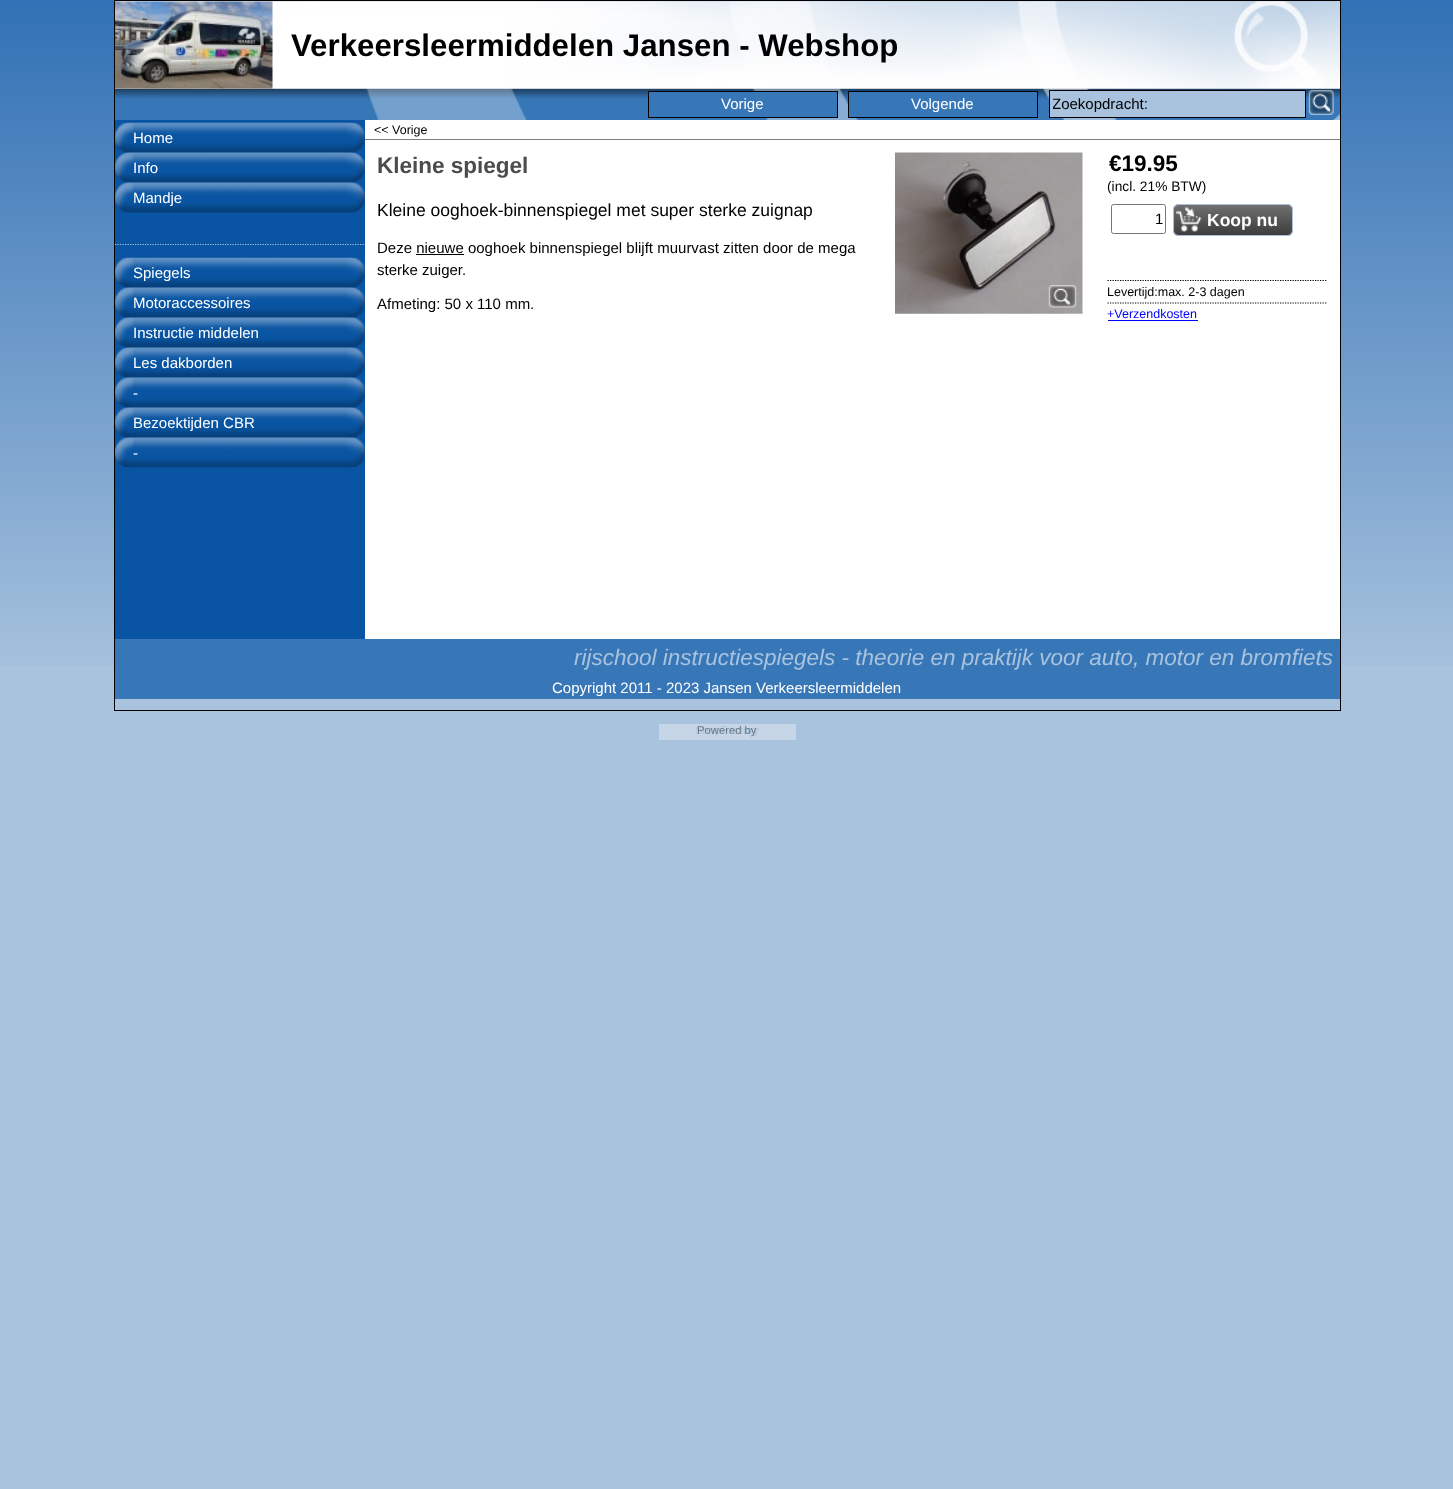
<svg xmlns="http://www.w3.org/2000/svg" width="1453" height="1489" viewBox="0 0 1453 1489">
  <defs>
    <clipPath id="clip1"><rect x="1053" y="95" width="250" height="18"/></clipPath>
    <clipPath id="clip2"><rect x="134" y="264" width="202" height="17"/></clipPath>
    <clipPath id="clip3"><rect x="1173" y="204" width="120" height="32" rx="6"/></clipPath>
    <linearGradient id="g1" gradientUnits="userSpaceOnUse" x1="1174" y1="205" x2="1174" y2="235"><stop offset="0" stop-color="rgb(255,255,255)" stop-opacity="0.2"/><stop offset="1" stop-color="rgb(0,0,0)" stop-opacity="0.2"/></linearGradient>
  </defs>
  <rect width="100%" height="100%" fill="rgb(169,195,222)"/>
  <image x="0" y="0" width="1453" height="666" href="pic1.png"/>
  <rect x="115" y="1" width="1225" height="665" fill="rgb(169,195,222)"/>
  <rect x="114.5" y="0.5" width="1226" height="710" fill="none" stroke="rgb(0,0,0)"/>
  <image x="115" y="1" width="1225" height="88" href="pic2.png"/>
  <image x="115" y="1" width="158" height="88" href="pic3.png"/>
  <text x="291" y="56" font-family="Liberation Sans" font-size="31.25" font-weight="bold" fill="rgb(0,0,0)">Verkeersleermiddelen Jansen - Webshop</text>
  <rect x="115" y="89" width="1225" height="31" fill="rgb(55,119,184)"/>
  <image x="115" y="88" width="1225" height="32" href="pic4.png"/>
  <rect x="648.5" y="91.5" width="189" height="26" fill="rgb(55,119,184)" stroke="rgb(0,0,0)"/>
  <text x="721" y="109" font-family="Liberation Sans" font-size="15" fill="rgb(255,255,255)">Vorige</text>
  <rect x="848.5" y="91.5" width="189" height="26" fill="rgb(55,119,184)" stroke="rgb(0,0,0)"/>
  <text x="911" y="109" font-family="Liberation Sans" font-size="15" fill="rgb(255,255,255)">Volgende</text>
  <rect x="1049.5" y="90.5" width="256" height="27" fill="rgb(169,195,222)" stroke="rgb(0,0,0)"/>
  <g clip-path="url(#clip1)">
    <text x="1052" y="109" font-family="Liberation Sans" font-size="15" fill="rgb(0,0,0)">Zoekopdracht:</text>
  </g>
  <image x="1308" y="90" width="26" height="25" href="pic5.png"/>
  <rect x="1333" y="118" width="1" height="1" fill="rgb(55,119,184)"/>
  <rect x="115" y="120" width="250" height="519" fill="rgb(10,85,163)"/>
  <path d="M115 244.5H365" fill="none" stroke="rgb(169,195,222)" stroke-width="1.2" stroke-dasharray="1.25 1.25"/>
  <image x="115" y="122" width="19" height="31" href="pic6.png"/>
  <image x="346" y="122" width="19" height="31" href="pic8.png"/>
  <image x="115" y="152" width="19" height="31" href="pic9.png"/>
  <image x="346" y="152" width="19" height="31" href="pic11.png"/>
  <image x="133" y="122" width="214" height="31" href="pic7.png"/>
  <text x="133" y="143" font-family="Liberation Sans" font-size="15" fill="rgb(255,255,255)">Home</text>
  <image x="115" y="182" width="19" height="31" href="pic9.png"/>
  <image x="346" y="182" width="19" height="31" href="pic11.png"/>
  <image x="133" y="152" width="214" height="31" href="pic10.png"/>
  <text x="133" y="173" font-family="Liberation Sans" font-size="15" fill="rgb(255,255,255)">Info</text>
  <image x="133" y="182" width="214" height="31" href="pic12.png"/>
  <text x="133" y="203" font-family="Liberation Sans" font-size="15" fill="rgb(255,255,255)">Mandje</text>
  <image x="115" y="257" width="19" height="31" href="pic6.png"/>
  <image x="346" y="257" width="19" height="31" href="pic8.png"/>
  <image x="115" y="287" width="19" height="31" href="pic13.png"/>
  <image x="346" y="287" width="19" height="31" href="pic15.png"/>
  <image x="133" y="257" width="214" height="31" href="pic7.png"/>
  <g clip-path="url(#clip2)">
    <text x="133" y="278" font-family="Liberation Sans" font-size="15" fill="rgb(255,255,255)">Spiegels</text>
  </g>
  <image x="115" y="317" width="19" height="31" href="pic16.png"/>
  <image x="346" y="317" width="19" height="31" href="pic17.png"/>
  <image x="133" y="287" width="214" height="31" href="pic14.png"/>
  <text x="133" y="308" font-family="Liberation Sans" font-size="15" fill="rgb(255,255,255)">Motoraccessoires</text>
  <image x="115" y="347" width="19" height="31" href="pic9.png"/>
  <image x="346" y="347" width="19" height="31" href="pic11.png"/>
  <image x="133" y="317" width="214" height="31" href="pic10.png"/>
  <text x="133" y="338" font-family="Liberation Sans" font-size="15" fill="rgb(255,255,255)">Instructie middelen</text>
  <image x="115" y="377" width="19" height="31" href="pic9.png"/>
  <image x="346" y="377" width="19" height="31" href="pic11.png"/>
  <image x="133" y="347" width="214" height="31" href="pic10.png"/>
  <text x="133" y="368" font-family="Liberation Sans" font-size="15" fill="rgb(255,255,255)">Les dakborden</text>
  <image x="115" y="407" width="19" height="31" href="pic9.png"/>
  <image x="346" y="407" width="19" height="31" href="pic11.png"/>
  <image x="133" y="377" width="214" height="31" href="pic10.png"/>
  <text x="133" y="398" font-family="Liberation Sans" font-size="15" fill="rgb(255,255,255)">-</text>
  <image x="115" y="437" width="19" height="31" href="pic18.png"/>
  <image x="346" y="437" width="19" height="31" href="pic20.png"/>
  <image x="133" y="407" width="214" height="31" href="pic10.png"/>
  <text x="133" y="428" font-family="Liberation Sans" font-size="15" fill="rgb(255,255,255)">Bezoektijden CBR</text>
  <image x="133" y="437" width="214" height="31" href="pic19.png"/>
  <text x="133" y="458" font-family="Liberation Sans" font-size="15" fill="rgb(255,255,255)">-</text>
  <rect x="365" y="120" width="975" height="519" fill="rgb(255,255,255)"/>
  <rect x="365" y="139" width="975" height="1" fill="rgb(127,127,127)"/>
  <text x="374" y="134" font-family="Liberation Sans" font-size="12.5" fill="rgb(0,0,0)">&lt;&lt; Vorige</text>
  <text x="377" y="173" font-family="Liberation Sans" font-size="22.5" font-weight="bold" fill="rgb(76,76,76)">Kleine spiegel</text>
  <image x="895" y="152" width="188" height="162" href="pic21.png"/>
  <image x="1048" y="285" width="29" height="23" href="pic22.png"/>
  <text x="377" y="216" font-family="Liberation Sans" font-size="17.5" fill="rgb(0,0,0)">Kleine ooghoek-binnenspiegel met super sterke zuignap</text>
  <text x="377" y="253" font-family="Liberation Sans" font-size="15" fill="rgb(0,0,0)">Deze nieuwe ooghoek binnenspiegel blijft muurvast zitten door de mega</text>
  <rect x="416" y="254" width="48" height="1" fill="rgb(0,0,0)"/>
  <g font-family="Liberation Sans" font-size="15" fill="rgb(0,0,0)">
    <text x="377" y="275">sterke zuiger.</text>
    <text x="377" y="309">Afmeting: 50 x 110 mm.</text>
  </g>
  <text x="1109" y="171" font-family="Liberation Sans" font-size="22.5" font-weight="bold" fill="rgb(0,0,0)">€19.95</text>
  <text x="1107" y="191" font-family="Liberation Sans" font-size="13.75" fill="rgb(0,0,0)">(incl. 21% BTW)</text>
  <rect x="1111.5" y="204.5" width="54" height="29" rx="2" fill="none" stroke="rgb(118,118,118)"/>
  <text x="1155" y="224" font-family="Liberation Sans" font-size="15" fill="rgb(0,0,0)">1</text>
  <rect x="1173" y="204" width="120" height="32" rx="6" fill="rgb(76,76,76)"/>
  <g clip-path="url(#clip3)">
    <rect x="1173" y="205" width="120" height="30" fill="url(#g1)"/>
  </g>
  <rect x="1173.5" y="204.5" width="119" height="31" rx="5.5" fill="none" stroke="rgb(169,195,222)"/>
  <image x="1176" y="207" width="26" height="25" href="pic23.png"/>
  <text x="1207" y="226" font-family="Liberation Sans" font-size="17.5" font-weight="bold" fill="rgb(255,255,255)">Koop nu</text>
  <path d="M1107.5 280.5H1327.5" fill="none" stroke="rgb(0,0,0)" stroke-width="1.2" stroke-dasharray="1.25 1.25"/>
  <path d="M1107.5 303H1327.5" fill="none" stroke="rgb(0,0,0)" stroke-width="1.2" stroke-dasharray="1.25 1.25"/>
  <text x="1107" y="296" font-family="Liberation Sans" font-size="12.5" fill="rgb(0,0,0)">Levertijd:max. 2-3 dagen</text>
  <text x="1107" y="318" font-family="Liberation Sans" font-size="12.5" fill="rgb(0,0,255)">+Verzendkosten</text>
  <rect x="1108" y="320" width="90" height="1" fill="rgb(0,0,255)"/>
  <rect x="115" y="639" width="1225" height="60" fill="rgb(55,119,184)"/>
  <text x="574" y="665" font-family="Liberation Sans" font-size="22.5" font-style="italic" fill="rgb(169,195,222)">rijschool instructiespiegels - theorie en praktijk voor auto, motor en bromfiets</text>
  <text x="552" y="693" font-family="Liberation Sans" font-size="15" fill="rgb(255,255,255)">Copyright 2011 - 2023 Jansen Verkeersleermiddelen</text>
  <rect x="659" y="724" width="137" height="16" fill="rgb(198,214,230)"/>
  <text x="695" y="734" font-family="Liberation Sans" font-size="11.25" fill="rgb(169,195,222)">ShopFactory</text>
  <text x="697" y="734" font-family="Liberation Sans" font-size="11.25" fill="rgb(101,117,133)">Powered by</text>
</svg>
